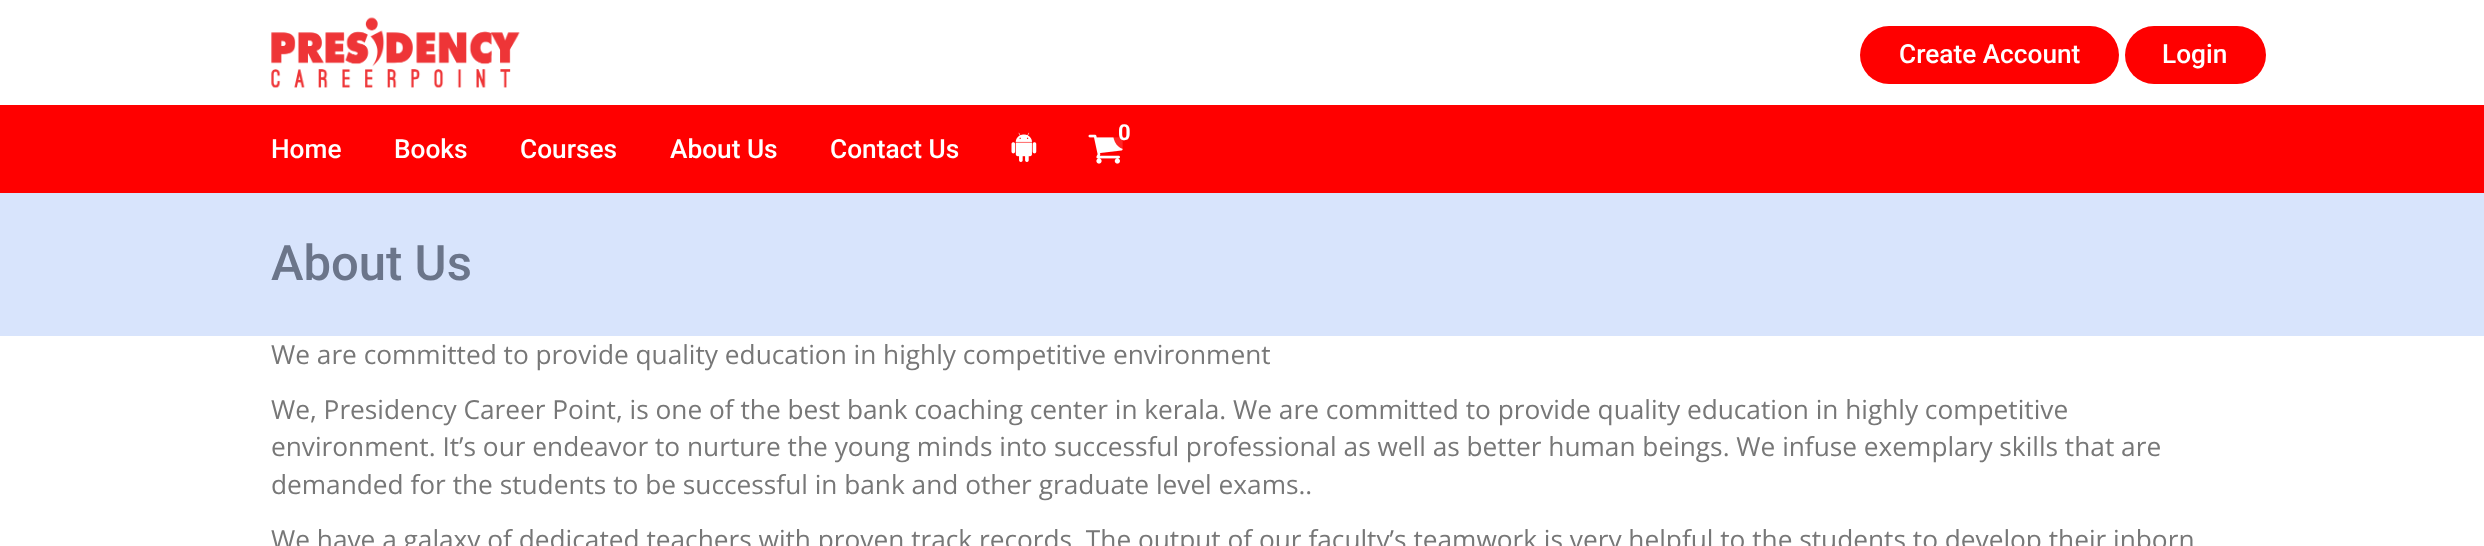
<svg xmlns="http://www.w3.org/2000/svg" width="2484" height="546" viewBox="0 0 2484 546">
  <rect width="100%" height="100%" fill="rgb(255,255,255)"/>
  <rect x="0" y="105" width="2484" height="88" fill="rgb(255,0,0)"/>
  <image x="271" y="17" width="249" height="71" href="pic1.png"/>
  <rect x="1860" y="26" width="259" height="58" rx="29" fill="rgb(255,0,0)"/>
  <text x="1899" y="63" font-family="Roboto" font-size="26.25" font-weight="500" fill="rgb(255,255,255)">Create Account</text>
  <rect x="2125" y="26" width="141" height="58" rx="29" fill="rgb(255,0,0)"/>
  <g font-family="Roboto" font-size="26.25" font-weight="500" fill="rgb(255,255,255)">
    <text x="2162" y="63">Login</text>
    <text x="271" y="158">Home</text>
    <text x="394" y="158">Books</text>
    <text x="520" y="158">Courses</text>
    <text x="670" y="158">About Us</text>
    <text x="830" y="158">Contact Us</text>
  </g>
  <image x="1011" y="132" width="26" height="30" href="pic2.png"/>
  <image x="1088" y="134" width="35" height="30" href="pic3.png"/>
  <ellipse cx="1124.5" cy="133" rx="11.5" ry="16" fill="rgba(255,0,0,0.85)"/>
  <text x="1118" y="140" font-family="Roboto" font-size="22" font-weight="bold" fill="rgb(255,255,255)">0</text>
  <rect x="0" y="193" width="2484" height="143" fill="rgb(216,228,252)"/>
  <text x="271" y="280" font-family="Roboto" font-size="49" font-weight="500" fill="rgb(107,117,138)">About Us</text>
  <g font-family="Open Sans" font-size="26.25" fill="rgb(119,119,119)">
    <text x="271" y="364">We are committed to provide quality education in highly competitive environment</text>
    <text>
      <tspan x="271" y="419">We, Presidency Career Point, is one of the best bank coaching center in kerala. We are committed to provide quality education in highly competitive</tspan>
      <tspan x="271" y="456">environment. It’s our endeavor to nurture the young minds into successful professional as well as better human beings. We infuse exemplary skills that are</tspan>
      <tspan x="271" y="494">demanded for the students to be successful in bank and other graduate level exams..</tspan>
    </text>
    <text x="271" y="549">We have a galaxy of dedicated teachers with proven track records. The output of our faculty’s teamwork is very helpful to the students to develop their inborn</text>
  </g>
</svg>
